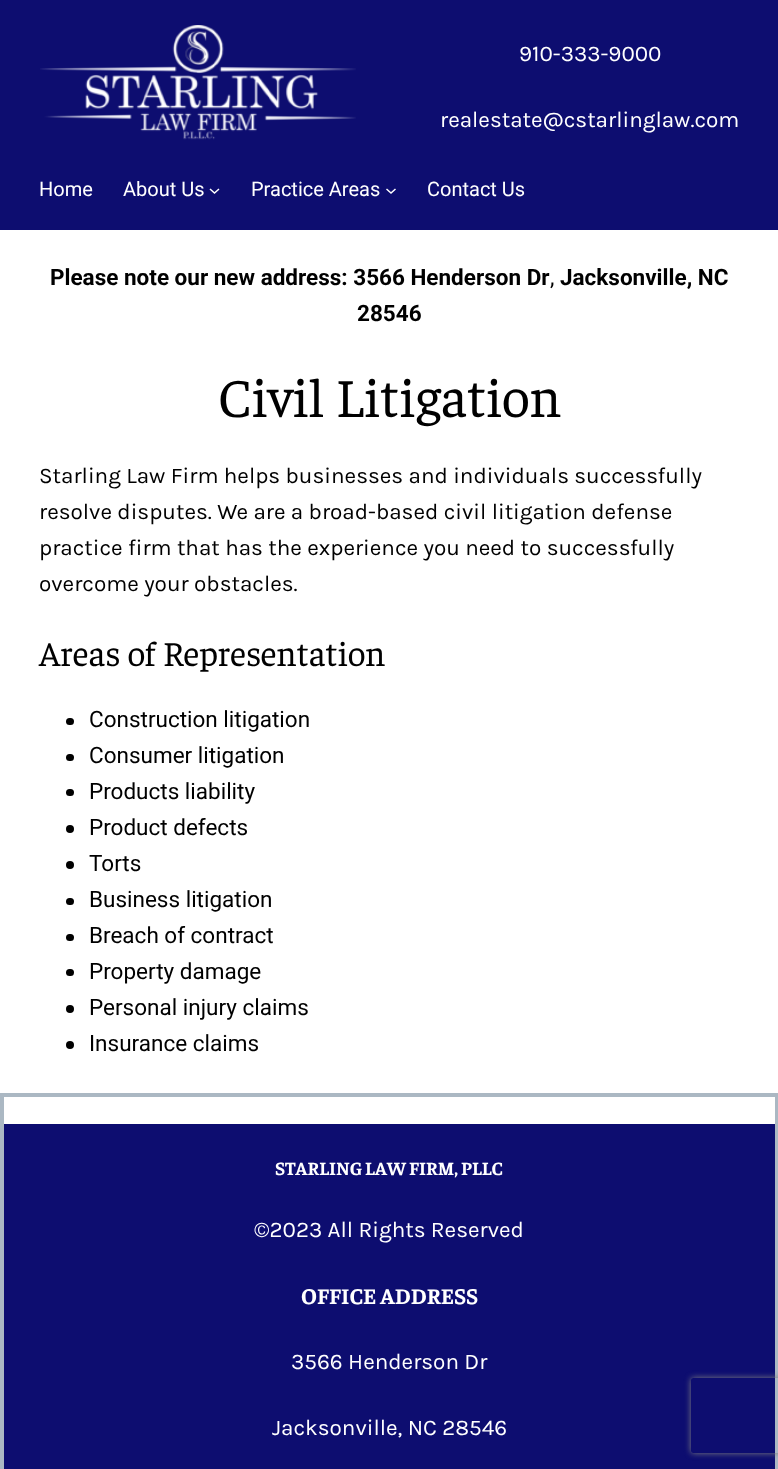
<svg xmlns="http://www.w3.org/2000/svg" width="778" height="1469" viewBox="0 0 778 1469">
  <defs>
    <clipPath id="clip1"><path d="M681 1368H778V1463H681ZM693.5 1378H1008.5C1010 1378 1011 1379 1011 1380.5V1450.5C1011 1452 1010 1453 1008.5 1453H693.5C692 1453 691 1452 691 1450.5V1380.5C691 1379 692 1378 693.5 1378Z" clip-rule="evenodd"/></clipPath>
  </defs>
  <rect width="100%" height="100%" fill="rgb(255,255,255)"/>
  <rect x="0" y="0" width="778" height="230" fill="rgb(13,13,112)"/>
  <image x="40" y="25" width="316" height="115" href="pic1.png"/>
  <g font-family="Karla" font-size="22.5" fill="rgb(255,255,255)">
    <text x="519" y="61">910-333-9000</text>
    <text x="440" y="127">realestate@cstarlinglaw.com</text>
  </g>
  <g font-family="Roboto" font-size="20" fill="rgb(255,255,255)">
    <text x="39" y="196">Home</text>
    <text x="123" y="196">About Us</text>
  </g>
  <path d="M210 189L214.5 193L219 189" fill="none" stroke="rgb(255,255,255)" stroke-width="1.5"/>
  <text x="251" y="196" font-family="Roboto" font-size="20" fill="rgb(255,255,255)">Practice Areas</text>
  <path d="M386.5 189L391 193L395.5 189" fill="none" stroke="rgb(255,255,255)" stroke-width="1.5"/>
  <text x="427" y="196" font-family="Roboto" font-size="20" fill="rgb(255,255,255)">Contact Us</text>
  <text x="50" y="285" font-family="Roboto" font-size="22.5" font-weight="bold" fill="rgb(0,0,0)">Please note our new address: 3566 Henderson Dr</text>
  <text x="550" y="285" font-family="Roboto" font-size="22.5" fill="rgb(0,0,0)">,</text>
  <g font-family="Roboto" font-size="22.5" font-weight="bold" fill="rgb(0,0,0)">
    <text x="560" y="285">Jacksonville, NC</text>
    <text x="357" y="321">28546</text>
  </g>
  <text x="218" y="417" font-family="Faustina" font-size="55" fill="rgb(0,0,0)">Civil Litigation</text>
  <g font-family="Karla" font-size="22.5" fill="rgb(0,0,0)">
    <text>
      <tspan x="39" y="483">Starling Law Firm helps businesses and individuals successfully</tspan>
      <tspan x="39" y="519">resolve disputes. We are a broad-based civil litigation defense</tspan>
      <tspan x="39" y="555">practice firm that has the experience you need to successfully</tspan>
      <tspan x="39" y="591">overcome your obstacles.</tspan>
    </text>
  </g>
  <text x="39" y="666" font-family="Faustina" font-size="35" fill="rgb(0,0,0)">Areas of Representation</text>
  <rect x="66" y="718" width="8" height="7" rx="3.5" fill="rgb(0,0,0)"/>
  <text x="89" y="727" font-family="Roboto" font-size="22.5" fill="rgb(0,0,0)">Construction litigation</text>
  <rect x="66" y="754" width="8" height="7" rx="3.5" fill="rgb(0,0,0)"/>
  <text x="89" y="763" font-family="Roboto" font-size="22.5" fill="rgb(0,0,0)">Consumer litigation</text>
  <rect x="66" y="789" width="8" height="7" rx="3.5" fill="rgb(0,0,0)"/>
  <text x="89" y="799" font-family="Roboto" font-size="22.5" fill="rgb(0,0,0)">Products liability</text>
  <circle cx="70" cy="829" r="4" fill="rgb(0,0,0)"/>
  <text x="89" y="835" font-family="Roboto" font-size="22.5" fill="rgb(0,0,0)">Product defects</text>
  <circle cx="70" cy="865" r="4" fill="rgb(0,0,0)"/>
  <text x="89" y="871" font-family="Roboto" font-size="22.5" fill="rgb(0,0,0)">Torts</text>
  <rect x="66" y="898" width="8" height="7" rx="3.5" fill="rgb(0,0,0)"/>
  <text x="89" y="907" font-family="Roboto" font-size="22.5" fill="rgb(0,0,0)">Business litigation</text>
  <rect x="66" y="934" width="8" height="7" rx="3.5" fill="rgb(0,0,0)"/>
  <text x="89" y="943" font-family="Roboto" font-size="22.5" fill="rgb(0,0,0)">Breach of contract</text>
  <rect x="66" y="969" width="8" height="7" rx="3.5" fill="rgb(0,0,0)"/>
  <text x="89" y="979" font-family="Roboto" font-size="22.5" fill="rgb(0,0,0)">Property damage</text>
  <circle cx="70" cy="1009" r="4" fill="rgb(0,0,0)"/>
  <text x="89" y="1015" font-family="Roboto" font-size="22.5" fill="rgb(0,0,0)">Personal injury claims</text>
  <circle cx="70" cy="1045" r="4" fill="rgb(0,0,0)"/>
  <text x="89" y="1051" font-family="Roboto" font-size="22.5" fill="rgb(0,0,0)">Insurance claims</text>
  <rect x="2" y="1095" width="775" height="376" fill="none" stroke="rgb(171,184,195)" stroke-width="4"/>
  <rect x="4" y="1124" width="771" height="345" fill="rgb(13,13,112)"/>
  <text x="275" y="1175" font-family="Faustina" font-size="18.75" font-weight="bold" fill="rgb(255,255,255)">STARLING LAW FIRM, PLLC</text>
  <text x="254" y="1237" font-family="Karla" font-size="22.5" fill="rgb(255,255,255)">©2023 All Rights Reserved</text>
  <text x="301" y="1304" font-family="Faustina" font-size="22.5" font-weight="bold" fill="rgb(255,255,255)">OFFICE ADDRESS</text>
  <g font-family="Karla" font-size="22.5" fill="rgb(255,255,255)">
    <text x="291" y="1369">3566 Henderson Dr</text>
    <text x="272" y="1435">Jacksonville, NC 28546</text>
  </g>
  <g clip-path="url(#clip1)">
    <rect x="691" y="1378" width="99" height="75" rx="2.5" fill="rgb(128,128,128)" filter="blur(3px)"/>
  </g>
</svg>
